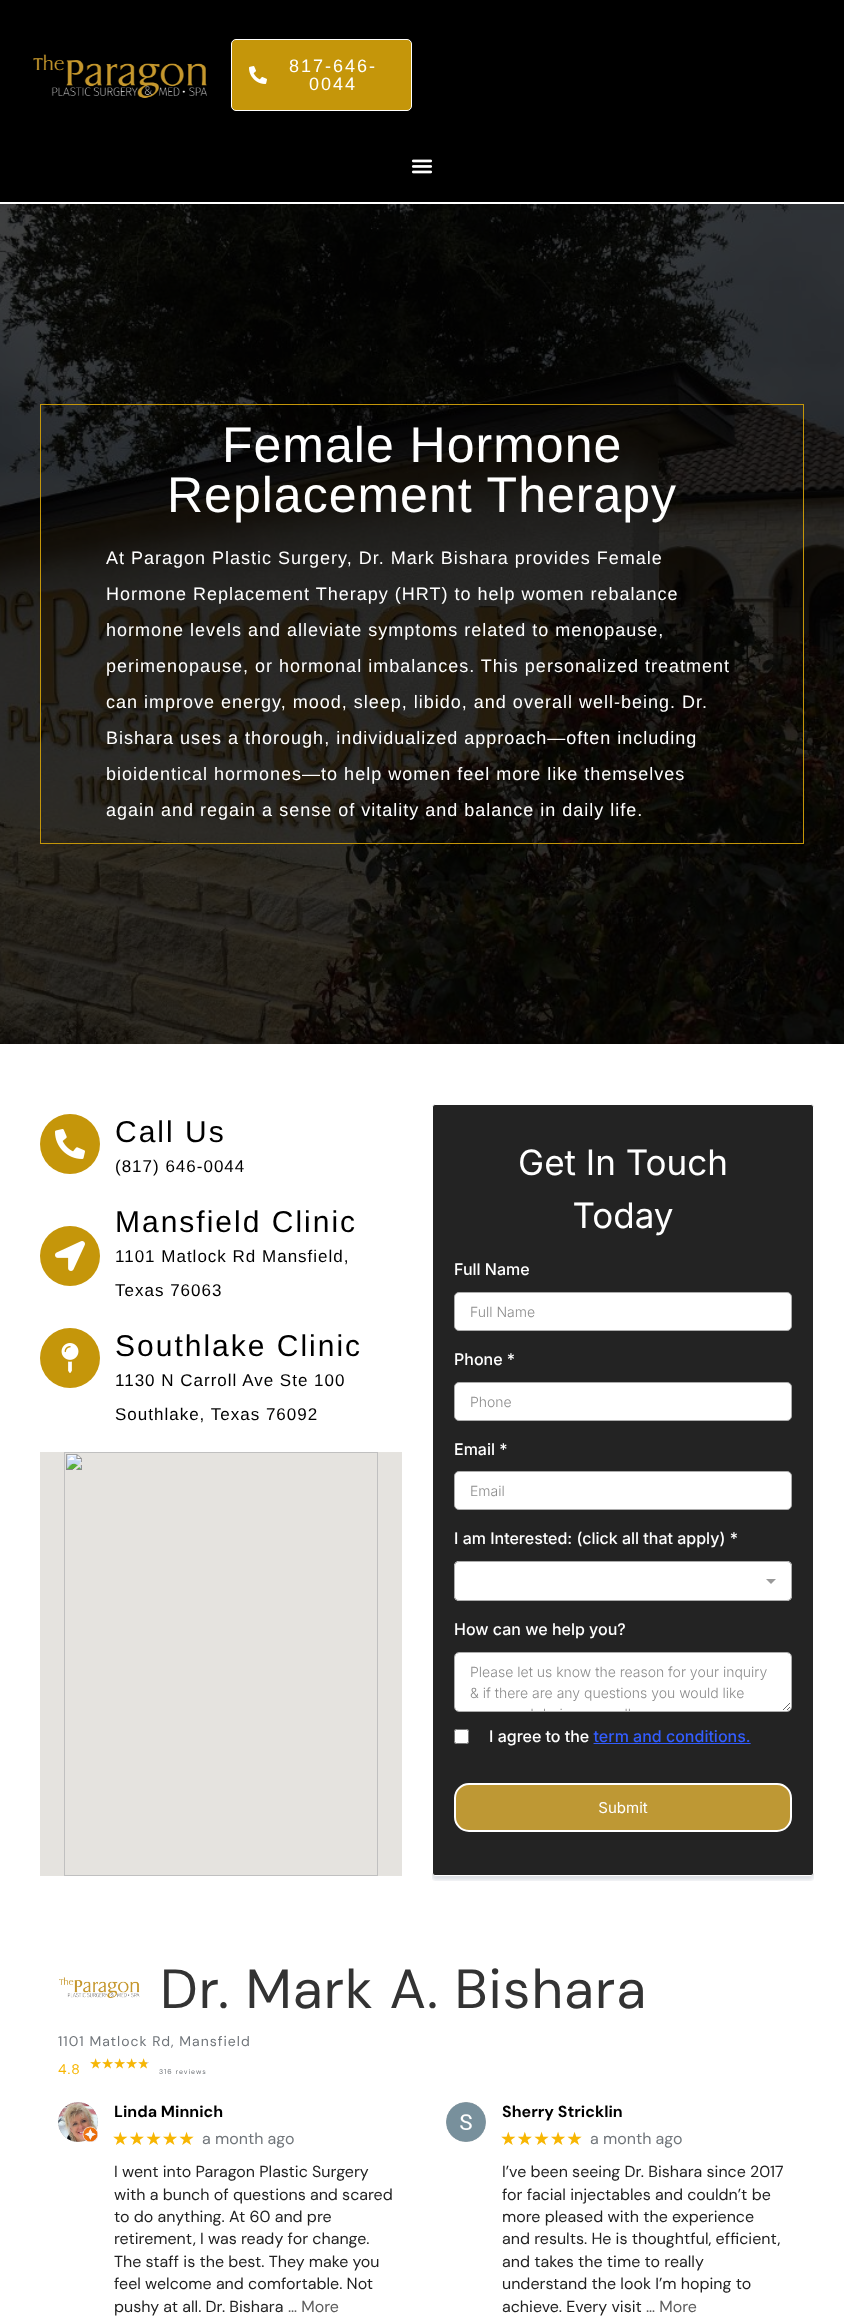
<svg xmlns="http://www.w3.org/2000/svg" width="844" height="2319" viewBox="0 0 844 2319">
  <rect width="100%" height="100%" fill="rgb(255,255,255)"/>
  <rect x="0" y="0" width="844" height="202" fill="rgb(0,0,0)"/>
  <image x="33" y="54" width="174" height="44" href="pic1.png"/>
  <rect x="231.5" y="39.5" width="180" height="71" rx="4.5" fill="rgb(197,150,10)" stroke="rgb(255,255,255)"/>
  <image x="249" y="66" width="18" height="18" href="pic2.png"/>
  <g font-family="Liberation Sans" font-size="18" letter-spacing="2" fill="rgb(255,255,255)">
    <text x="289" y="72">817-646-</text>
    <text x="309" y="90">0044</text>
  </g>
  <image x="411" y="159" width="22" height="15" href="pic3.png"/>
  <image x="0" y="204" width="844" height="840" href="pic4.png"/>
  <rect x="40.5" y="404.5" width="763" height="439" fill="none" stroke="rgb(196,150,9)"/>
  <g font-family="Liberation Sans" font-size="50" letter-spacing="1" fill="rgb(255,255,255)">
    <text x="222" y="462">Female Hormone</text>
    <text x="167" y="512">Replacement Therapy</text>
  </g>
  <g font-family="Liberation Sans" font-size="18" letter-spacing="1" fill="rgb(255,255,255)">
    <text x="106" y="564">At Paragon Plastic Surgery, Dr. Mark Bishara provides Female</text>
    <text x="106" y="600">Hormone Replacement Therapy (HRT) to help women rebalance</text>
    <text x="106" y="636">hormone levels and alleviate symptoms related to menopause,</text>
    <text x="106" y="672">perimenopause, or hormonal imbalances. This personalized treatment</text>
    <text x="106" y="708">can improve energy, mood, sleep, libido, and overall well-being. Dr.</text>
    <text x="106" y="744">Bishara uses a thorough, individualized approach—often including</text>
    <text x="106" y="780">bioidentical hormones—to help women feel more like themselves</text>
    <text x="106" y="816">again and regain a sense of vitality and balance in daily life.</text>
  </g>
  <circle cx="70" cy="1144" r="30" fill="rgb(197,150,10)"/>
  <image x="55" y="1129" width="30" height="30" href="pic5.png"/>
  <text x="115" y="1142" font-family="Liberation Sans" font-size="30" letter-spacing="2" fill="rgb(0,0,0)">Call Us</text>
  <text x="115" y="1172" font-family="Liberation Sans" font-size="17" letter-spacing="1" fill="rgb(0,0,0)">(817) 646-0044</text>
  <circle cx="70" cy="1256" r="30" fill="rgb(197,150,10)"/>
  <image x="55" y="1241" width="30" height="30" href="pic6.png"/>
  <text x="115" y="1232" font-family="Liberation Sans" font-size="30" letter-spacing="2" fill="rgb(0,0,0)">Mansfield Clinic</text>
  <g font-family="Liberation Sans" font-size="17" letter-spacing="1" fill="rgb(0,0,0)">
    <text x="115" y="1262">1101 Matlock Rd Mansfield,</text>
    <text x="115" y="1296">Texas 76063</text>
  </g>
  <circle cx="70" cy="1358" r="30" fill="rgb(197,150,10)"/>
  <image x="61" y="1343" width="18" height="30" href="pic7.png"/>
  <text x="115" y="1356" font-family="Liberation Sans" font-size="30" letter-spacing="2" fill="rgb(0,0,0)">Southlake Clinic</text>
  <g font-family="Liberation Sans" font-size="17" letter-spacing="1" fill="rgb(0,0,0)">
    <text x="115" y="1386">1130 N Carroll Ave Ste 100</text>
    <text x="115" y="1420">Southlake, Texas 76092</text>
  </g>
  <image x="40" y="1452" width="362" height="424" href="pic8.png"/>
  <image x="432" y="1104" width="382" height="777" href="pic9.png"/>
  <image x="59" y="1977" width="81" height="22" href="pic10.png"/>
  <text x="160" y="2008" font-family="DM Sans" font-size="55" letter-spacing="1" fill="rgb(51,51,51)">Dr. Mark A. Bishara</text>
  <text x="58" y="2046" font-family="DM Sans" font-size="14" letter-spacing="1" fill="rgb(112,117,122)">1101 Matlock Rd, Mansfield</text>
  <image x="91" y="2059" width="10" height="9" href="pic16.png"/>
  <image x="90" y="2058" width="11" height="11" href="pic11.png"/>
  <image x="103" y="2059" width="10" height="9" href="pic17.png"/>
  <image x="102" y="2058" width="11" height="11" href="pic12.png"/>
  <image x="115" y="2059" width="10" height="9" href="pic18.png"/>
  <image x="114" y="2058" width="11" height="11" href="pic13.png"/>
  <image x="127" y="2059" width="10" height="9" href="pic19.png"/>
  <image x="126" y="2058" width="11" height="11" href="pic14.png"/>
  <image x="139" y="2059" width="10" height="9" href="pic20.png"/>
  <image x="138" y="2058" width="11" height="11" href="pic15.png"/>
  <text x="58" y="2074" font-family="DM Sans" font-size="14" letter-spacing="1" fill="rgb(247,182,3)">4.8</text>
  <text x="159" y="2074" font-family="DM Sans" font-size="7" letter-spacing="1" fill="rgb(112,117,122)">316 reviews</text>
  <image x="58" y="2102" width="40" height="40" href="pic21.png"/>
  <text x="114" y="2117" font-family="DM Sans" font-size="16" font-weight="bold" fill="rgb(0,0,0)">Linda Minnich</text>
  <text x="112" y="2145" font-family="DejaVu Sans" font-size="18.5" fill="rgb(247,182,3)">★★★★★</text>
  <text x="202" y="2144" font-family="DM Sans" font-size="16" fill="rgb(112,117,122)">a month ago</text>
  <g font-family="DM Sans" font-size="16" fill="rgb(34,34,34)">
    <text>
      <tspan x="114" y="2177">I went into Paragon Plastic Surgery</tspan>
      <tspan x="114" y="2200">with a bunch of questions and scared</tspan>
      <tspan x="114" y="2222">to do anything. At 60 and pre</tspan>
      <tspan x="114" y="2244">retirement, I was ready for change.</tspan>
      <tspan x="114" y="2267">The staff is the best. They make you</tspan>
      <tspan x="114" y="2289">feel welcome and comfortable. Not</tspan>
      <tspan x="114" y="2312">pushy at all. Dr. Bishara</tspan>
    </text>
  </g>
  <text x="288" y="2312" font-family="DM Sans" font-size="16" fill="rgb(92,92,92)">… More</text>
  <image x="446" y="2102" width="40" height="40" href="pic22.png"/>
  <text x="502" y="2117" font-family="DM Sans" font-size="16" font-weight="bold" fill="rgb(0,0,0)">Sherry Stricklin</text>
  <text x="500" y="2145" font-family="DejaVu Sans" font-size="18.5" fill="rgb(247,182,3)">★★★★★</text>
  <text x="590" y="2144" font-family="DM Sans" font-size="16" fill="rgb(112,117,122)">a month ago</text>
  <g font-family="DM Sans" font-size="16" fill="rgb(34,34,34)">
    <text>
      <tspan x="502" y="2177">I’ve been seeing Dr. Bishara since 2017</tspan>
      <tspan x="502" y="2200">for facial injectables and couldn’t be</tspan>
      <tspan x="502" y="2222">more pleased with the experience</tspan>
      <tspan x="502" y="2244">and results. He is thoughtful, efficient,</tspan>
      <tspan x="502" y="2267">and takes the time to really</tspan>
      <tspan x="502" y="2289">understand the look I’m hoping to</tspan>
      <tspan x="502" y="2312">achieve. Every visit</tspan>
    </text>
  </g>
  <text x="646" y="2312" font-family="DM Sans" font-size="16" fill="rgb(92,92,92)">… More</text>
</svg>
